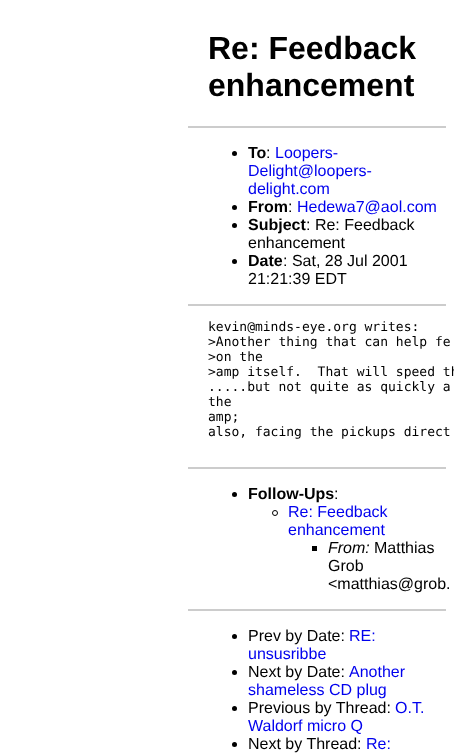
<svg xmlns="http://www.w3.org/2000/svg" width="454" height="754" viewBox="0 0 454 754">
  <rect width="100%" height="100%" fill="rgb(255,255,255)"/>
  <g font-family="Liberation Sans" font-size="32" font-weight="bold" fill="rgb(0,0,0)">
    <text>
      <tspan x="208" y="59">Re: Feedback</tspan>
      <tspan x="208" y="96">enhancement</tspan>
    </text>
  </g>
  <rect x="188" y="126" width="258" height="2" fill="rgb(204,204,204)"/>
  <circle cx="234.5" cy="153.5" r="2.5" fill="rgb(0,0,0)"/>
  <text x="248" y="158" font-family="Liberation Sans" font-size="16" font-weight="bold" fill="rgb(0,0,0)">To</text>
  <text x="266" y="158" font-family="Liberation Sans" font-size="16" fill="rgb(0,0,0)">:</text>
  <g font-family="Liberation Sans" font-size="16" fill="rgb(0,0,238)">
    <text x="275" y="158">Loopers-</text>
    <text>
      <tspan x="248" y="176">Delight@loopers-</tspan>
      <tspan x="248" y="194">delight.com</tspan>
    </text>
  </g>
  <circle cx="234.5" cy="207.5" r="2.5" fill="rgb(0,0,0)"/>
  <text x="248" y="212" font-family="Liberation Sans" font-size="16" font-weight="bold" fill="rgb(0,0,0)">From</text>
  <text x="288" y="212" font-family="Liberation Sans" font-size="16" fill="rgb(0,0,0)">:</text>
  <text x="297" y="212" font-family="Liberation Sans" font-size="16" fill="rgb(0,0,238)">Hedewa7@aol.com</text>
  <circle cx="234.5" cy="225.5" r="2.5" fill="rgb(0,0,0)"/>
  <text x="248" y="230" font-family="Liberation Sans" font-size="16" font-weight="bold" fill="rgb(0,0,0)">Subject</text>
  <g font-family="Liberation Sans" font-size="16" fill="rgb(0,0,0)">
    <text x="306" y="230">: Re: Feedback</text>
    <text x="248" y="248">enhancement</text>
  </g>
  <circle cx="234.5" cy="261.5" r="2.5" fill="rgb(0,0,0)"/>
  <text x="248" y="266" font-family="Liberation Sans" font-size="16" font-weight="bold" fill="rgb(0,0,0)">Date</text>
  <g font-family="Liberation Sans" font-size="16" fill="rgb(0,0,0)">
    <text x="283" y="266">: Sat, 28 Jul 2001</text>
    <text x="248" y="284">21:21:39 EDT</text>
  </g>
  <rect x="188" y="304" width="258" height="2" fill="rgb(204,204,204)"/>
  <g font-family="DejaVu Sans Mono" font-size="13" fill="rgb(0,0,0)">
    <text xml:space="preserve"><tspan x="208" y="331">kevin@minds-eye.org writes:</tspan><tspan x="208" y="346">&gt;Another thing that can help fe</tspan><tspan x="208" y="361">&gt;on the</tspan><tspan x="208" y="376">&gt;amp itself.  That will speed th</tspan><tspan x="208" y="391">.....but not quite as quickly a</tspan><tspan x="208" y="406">the</tspan><tspan x="208" y="421">amp;</tspan><tspan x="208" y="436">also, facing the pickups direct</tspan></text>
  </g>
  <rect x="188" y="467" width="258" height="2" fill="rgb(204,204,204)"/>
  <circle cx="234.5" cy="494.5" r="2.5" fill="rgb(0,0,0)"/>
  <text x="248" y="499" font-family="Liberation Sans" font-size="16" font-weight="bold" fill="rgb(0,0,0)">Follow-Ups</text>
  <text x="334" y="499" font-family="Liberation Sans" font-size="16" fill="rgb(0,0,0)">:</text>
  <circle cx="275" cy="513" r="2.5" fill="none" stroke="rgb(0,0,0)"/>
  <g font-family="Liberation Sans" font-size="16" fill="rgb(0,0,238)">
    <text>
      <tspan x="288" y="517">Re: Feedback</tspan>
      <tspan x="288" y="535">enhancement</tspan>
    </text>
  </g>
  <rect x="312" y="546" width="5" height="5" fill="rgb(0,0,0)"/>
  <text x="328" y="553" font-family="Liberation Sans" font-size="16" font-style="italic" fill="rgb(0,0,0)">From:</text>
  <g font-family="Liberation Sans" font-size="16" fill="rgb(0,0,0)">
    <text x="374" y="553">Matthias</text>
    <text>
      <tspan x="328" y="571">Grob</tspan>
      <tspan x="328" y="589">&lt;matthias@grob.</tspan>
    </text>
  </g>
  <rect x="188" y="609" width="258" height="2" fill="rgb(204,204,204)"/>
  <circle cx="234.5" cy="636.5" r="2.5" fill="rgb(0,0,0)"/>
  <text x="248" y="641" font-family="Liberation Sans" font-size="16" fill="rgb(0,0,0)">Prev by Date:</text>
  <g font-family="Liberation Sans" font-size="16" fill="rgb(0,0,238)">
    <text x="349" y="641">RE:</text>
    <text x="248" y="659">unsusribbe</text>
  </g>
  <circle cx="234.5" cy="672.5" r="2.5" fill="rgb(0,0,0)"/>
  <text x="248" y="677" font-family="Liberation Sans" font-size="16" fill="rgb(0,0,0)">Next by Date:</text>
  <g font-family="Liberation Sans" font-size="16" fill="rgb(0,0,238)">
    <text x="349" y="677">Another</text>
    <text x="248" y="695">shameless CD plug</text>
  </g>
  <circle cx="234.5" cy="708.5" r="2.5" fill="rgb(0,0,0)"/>
  <text x="248" y="713" font-family="Liberation Sans" font-size="16" fill="rgb(0,0,0)">Previous by Thread:</text>
  <g font-family="Liberation Sans" font-size="16" fill="rgb(0,0,238)">
    <text x="395" y="713">O.T.</text>
    <text x="248" y="731">Waldorf micro Q</text>
  </g>
  <circle cx="234.5" cy="744.5" r="2.5" fill="rgb(0,0,0)"/>
  <text x="248" y="749" font-family="Liberation Sans" font-size="16" fill="rgb(0,0,0)">Next by Thread:</text>
  <text x="366" y="749" font-family="Liberation Sans" font-size="16" fill="rgb(0,0,238)">Re:</text>
</svg>
